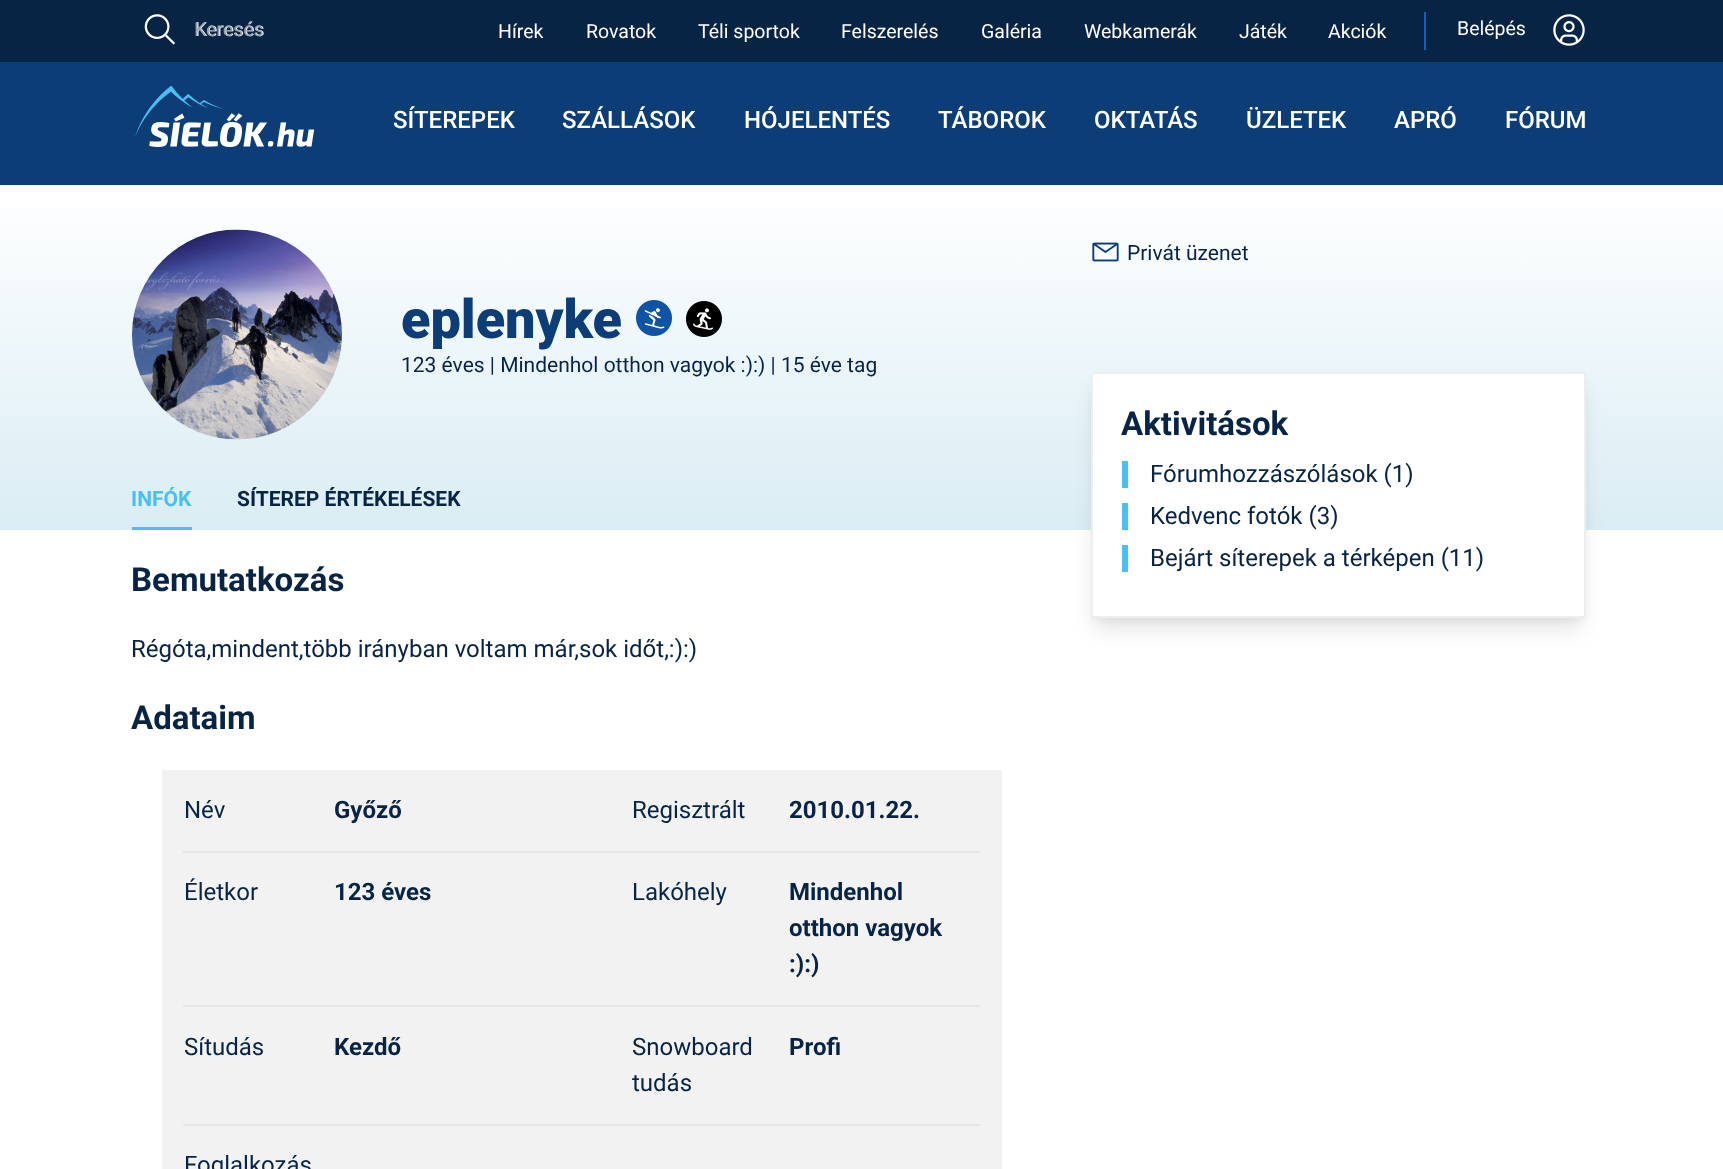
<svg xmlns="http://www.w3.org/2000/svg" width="1723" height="1169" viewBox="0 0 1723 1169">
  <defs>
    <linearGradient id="g1" gradientUnits="userSpaceOnUse" x1="862" y1="184" x2="862" y2="530"><stop offset="0" stop-color="rgb(255,255,255)"/><stop offset="1" stop-color="rgb(218,237,244)"/></linearGradient>
  </defs>
  <rect width="100%" height="100%" fill="rgb(255,255,255)"/>
  <rect x="0" y="0" width="1723" height="62" fill="rgb(7,36,69)"/>
  <text x="195" y="36" font-family="Roboto" font-size="19.5" fill="rgb(255,255,255)">Keresés</text>
  <text x="194" y="36" font-family="Roboto" font-size="19.5" fill="rgb(147,160,174)">Keresés</text>
  <image x="144" y="14" width="31" height="31" href="pic1.png"/>
  <g font-family="Roboto" font-size="19.5" fill="rgb(255,255,255)">
    <text x="498" y="38">Hírek</text>
    <text x="586" y="38">Rovatok</text>
    <text x="698" y="38">Téli sportok</text>
    <text x="841" y="38">Felszerelés</text>
    <text x="981" y="38">Galéria</text>
    <text x="1084" y="38">Webkamerák</text>
    <text x="1239" y="38">Játék</text>
    <text x="1328" y="38">Akciók</text>
  </g>
  <rect x="1424" y="12" width="2" height="38" fill="rgb(17,96,189)"/>
  <text x="1457" y="35" font-family="Roboto" font-size="19.5" fill="rgb(255,255,255)">Belépés</text>
  <image x="1553" y="14" width="32" height="32" href="pic2.png"/>
  <rect x="0" y="62" width="1723" height="123" fill="rgb(12,61,118)"/>
  <image x="135" y="86" width="180" height="61" href="pic3.png"/>
  <g font-family="Roboto" font-size="24" font-weight="500" fill="rgb(255,255,255)">
    <text x="393" y="128">SÍTEREPEK</text>
    <text x="562" y="128">SZÁLLÁSOK</text>
    <text x="744" y="128">HÓJELENTÉS</text>
    <text x="938" y="128">TÁBOROK</text>
    <text x="1094" y="128">OKTATÁS</text>
    <text x="1246" y="128">ÜZLETEK</text>
    <text x="1394" y="128">APRÓ</text>
    <text x="1505" y="128">FÓRUM</text>
  </g>
  <rect x="0" y="207" width="1723" height="323" fill="url(#g1)"/>
  <image x="132" y="229" width="210" height="211" href="pic4.png"/>
  <text x="401" y="338" font-family="Roboto" font-size="54" font-weight="900" fill="rgb(12,61,118)">eplenyke</text>
  <image x="636" y="300" width="36" height="36" href="pic5.png"/>
  <image x="686" y="301" width="36" height="36" href="pic6.png"/>
  <text x="401" y="372" font-family="Roboto" font-size="21" fill="rgb(7,36,69)">123 éves | Mindenhol otthon vagyok :):) | 15 éve tag</text>
  <rect x="132" y="527" width="60" height="3" fill="rgb(74,192,242)"/>
  <text x="131" y="506" font-family="Roboto" font-size="21" font-weight="bold" fill="rgb(74,192,242)">INFÓK</text>
  <text x="237" y="506" font-family="Roboto" font-size="21" font-weight="bold" fill="rgb(7,36,69)">SÍTEREP ÉRTÉKELÉSEK</text>
  <text x="131" y="591" font-family="Roboto" font-size="33" font-weight="bold" fill="rgb(7,36,69)">Bemutatkozás</text>
  <text x="131" y="657" font-family="Roboto" font-size="24" fill="rgb(7,36,69)">Régóta,mindent,több irányban voltam már,sok időt,:):)</text>
  <text x="131" y="729" font-family="Roboto" font-size="33" font-weight="bold" fill="rgb(7,36,69)">Adataim</text>
  <rect x="162" y="770" width="840" height="399" fill="rgb(242,242,242)"/>
  <rect x="183" y="851" width="797" height="2" fill="rgb(230,230,230)"/>
  <text x="184" y="818" font-family="Roboto" font-size="24" fill="rgb(7,36,69)">Név</text>
  <text x="334" y="818" font-family="Roboto" font-size="24" font-weight="bold" fill="rgb(7,36,69)">Győző</text>
  <text x="632" y="818" font-family="Roboto" font-size="24" fill="rgb(7,36,69)">Regisztrált</text>
  <text x="789" y="818" font-family="Roboto" font-size="24" font-weight="bold" fill="rgb(7,36,69)">2010.01.22.</text>
  <rect x="183" y="1005" width="797" height="2" fill="rgb(230,230,230)"/>
  <text x="184" y="900" font-family="Roboto" font-size="24" fill="rgb(7,36,69)">Életkor</text>
  <text x="334" y="900" font-family="Roboto" font-size="24" font-weight="bold" fill="rgb(7,36,69)">123 éves</text>
  <text x="632" y="900" font-family="Roboto" font-size="24" fill="rgb(7,36,69)">Lakóhely</text>
  <g font-family="Roboto" font-size="24" font-weight="bold" fill="rgb(7,36,69)">
    <text>
      <tspan x="789" y="900">Mindenhol</tspan>
      <tspan x="789" y="936">otthon vagyok</tspan>
      <tspan x="789" y="972">:):)</tspan>
    </text>
  </g>
  <rect x="183" y="1124" width="797" height="2" fill="rgb(230,230,230)"/>
  <text x="184" y="1055" font-family="Roboto" font-size="24" fill="rgb(7,36,69)">Sítudás</text>
  <text x="334" y="1055" font-family="Roboto" font-size="24" font-weight="bold" fill="rgb(7,36,69)">Kezdő</text>
  <g font-family="Roboto" font-size="24" fill="rgb(7,36,69)">
    <text>
      <tspan x="632" y="1055">Snowboard</tspan>
      <tspan x="632" y="1091">tudás</tspan>
    </text>
  </g>
  <text x="789" y="1055" font-family="Roboto" font-size="24" font-weight="bold" fill="rgb(7,36,69)">Profi</text>
  <text x="184" y="1173" font-family="Roboto" font-size="24" fill="rgb(7,36,69)">Foglalkozás</text>
  <image x="1092" y="242" width="27" height="20" href="pic7.png"/>
  <text x="1127" y="260" font-family="Roboto" font-size="21" fill="rgb(7,36,69)">Privát üzenet</text>
  <rect x="1094" y="381" width="489" height="240" fill="rgba(0,0,0,0.05)" filter="blur(4.5px)"/>
  <rect x="1095" y="392" width="486" height="237" fill="rgba(0,0,0,0.1)" filter="blur(11px)"/>
  <rect x="1092" y="373" width="493" height="244" fill="rgb(255,255,255)" stroke="rgb(238,238,238)" stroke-width="2"/>
  <text x="1121" y="435" font-family="Roboto" font-size="33" font-weight="bold" fill="rgb(7,36,69)">Aktivitások</text>
  <rect x="1122" y="461" width="6" height="27" fill="rgb(74,192,242)"/>
  <text x="1150" y="482" font-family="Roboto" font-size="24" fill="rgb(7,36,69)">Fórumhozzászólások (1)</text>
  <rect x="1122" y="503" width="6" height="27" fill="rgb(74,192,242)"/>
  <text x="1150" y="524" font-family="Roboto" font-size="24" fill="rgb(7,36,69)">Kedvenc fotók (3)</text>
  <rect x="1122" y="545" width="6" height="27" fill="rgb(74,192,242)"/>
  <text x="1150" y="566" font-family="Roboto" font-size="24" fill="rgb(7,36,69)">Bejárt síterepek a térképen (11)</text>
</svg>
